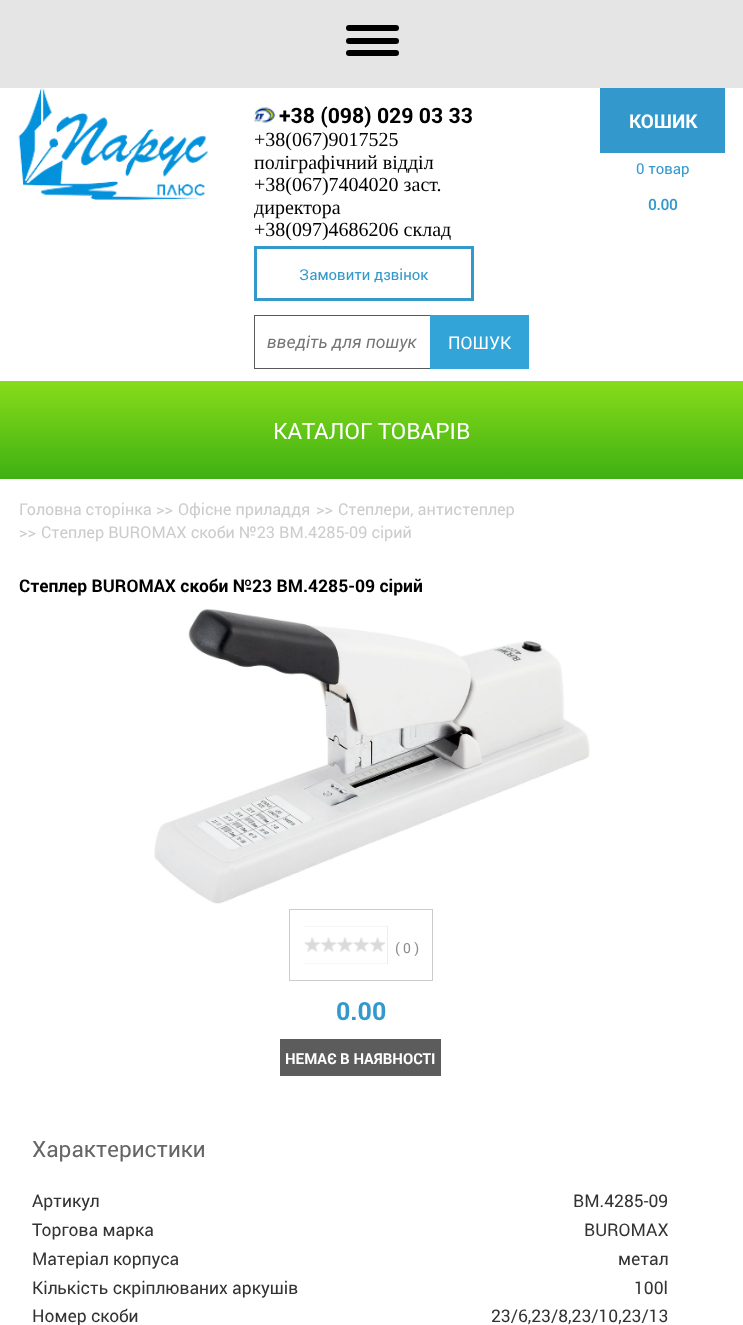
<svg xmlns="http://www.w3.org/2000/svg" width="743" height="1325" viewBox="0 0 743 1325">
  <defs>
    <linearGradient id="g1" gradientUnits="userSpaceOnUse" x1="372" y1="479" x2="372" y2="381"><stop offset="0" stop-color="rgb(62,176,19)"/><stop offset="1" stop-color="rgb(136,220,26)"/></linearGradient>
  </defs>
  <rect width="100%" height="100%" fill="rgb(255,255,255)"/>
  <rect x="0" y="0" width="743" height="88" fill="rgb(229,229,229)"/>
  <rect x="346" y="25" width="53" height="6" rx="3" fill="rgb(0,0,0)"/>
  <rect x="346" y="38" width="53" height="6" rx="3" fill="rgb(0,0,0)"/>
  <rect x="346" y="50" width="53" height="6" rx="3" fill="rgb(0,0,0)"/>
  <image x="18" y="88" width="190" height="112" href="pic1.png"/>
  <image x="253" y="107" width="22" height="16" href="pic2.png"/>
  <text x="279" y="123" font-family="Roboto" font-size="21.25" font-weight="bold" fill="rgb(0,0,0)">+38 (098) 029 03 33</text>
  <g font-family="Liberation Serif" font-size="20" fill="rgb(0,0,0)">
    <text>
      <tspan x="254" y="146">+38(067)9017525</tspan>
      <tspan x="254" y="169">поліграфічний відділ</tspan>
      <tspan x="254" y="191">+38(067)7404020 заст.</tspan>
      <tspan x="254" y="214">директора</tspan>
      <tspan x="254" y="236">+38(097)4686206 склад</tspan>
    </text>
  </g>
  <rect x="255.5" y="247.5" width="217" height="52" fill="none" stroke="rgb(51,153,204)" stroke-width="3"/>
  <text x="299" y="280" font-family="Roboto" font-size="15" fill="rgb(51,153,204)">Замовити дзвінок</text>
  <rect x="254.5" y="315.5" width="274" height="53" fill="none" stroke="rgb(89,89,89)"/>
  <text x="267" y="348" font-family="Roboto" font-size="17.5" font-style="italic" fill="rgb(117,117,117)">введіть для пошук</text>
  <rect x="430" y="315" width="99" height="54" fill="rgb(51,164,215)"/>
  <text x="448" y="349" font-family="Roboto" font-size="17.5" fill="rgb(255,255,255)">ПОШУК</text>
  <rect x="600" y="88" width="125" height="65" fill="rgb(51,153,204)"/>
  <text x="629" y="128" font-family="Roboto" font-size="19" font-weight="bold" fill="rgb(255,255,255)">КОШИК</text>
  <text x="636" y="174" font-family="Roboto" font-size="15" fill="rgb(51,153,204)">0 товар</text>
  <text x="648" y="210" font-family="'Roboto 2'" font-size="15" font-weight="bold" fill="rgb(51,153,204)">0.00</text>
  <rect x="0" y="381" width="743" height="98" fill="url(#g1)"/>
  <text x="273" y="439" font-family="Roboto" font-size="22.5" fill="rgb(255,255,255)">КАТАЛОГ ТОВАРІВ</text>
  <g font-family="Roboto" font-size="16.25" fill="rgb(204,204,204)">
    <text x="19" y="515">Головна сторінка</text>
    <text x="156" y="515">&gt;&gt;</text>
    <text x="178" y="515">Офісне приладдя</text>
    <text x="316" y="515">&gt;&gt;</text>
    <text x="338" y="515">Степлери, антистеплер</text>
    <text x="19" y="538">&gt;&gt;</text>
    <text x="41" y="538">Степлер BUROMAX скоби №23 BM.4285-09 сірий</text>
  </g>
  <text x="19" y="592" font-family="Roboto" font-size="17.5" font-weight="bold" fill="rgb(0,0,0)">Степлер BUROMAX скоби №23 BM.4285-09 сірий</text>
  <image x="154" y="608" width="436" height="296" href="pic3.png"/>
  <rect x="289.5" y="909.5" width="143" height="71" fill="none" stroke="rgb(204,204,204)"/>
  <rect x="303" y="926" width="85" height="38" fill="rgb(218,218,218)"/>
  <image x="303" y="926" width="85" height="38" href="pic4.png"/>
  <text x="395" y="953" font-family="Roboto" font-size="14" fill="rgb(141,141,141)">( 0 )</text>
  <text x="336" y="1020" font-family="Roboto" font-size="25" font-weight="bold" fill="rgb(51,153,204)">0.00</text>
  <rect x="280" y="1039" width="161" height="37" fill="rgb(92,92,92)"/>
  <text x="285" y="1064" font-family="Roboto" font-size="15" font-weight="bold" fill="rgb(255,255,255)">НЕМАЄ В НАЯВНОСТІ</text>
  <text x="32" y="1157" font-family="Roboto" font-size="22.5" fill="rgb(102,102,102)">Характеристики</text>
  <g font-family="Roboto" font-size="17.5" fill="rgb(51,51,51)">
    <text x="32" y="1207">Артикул</text>
    <text x="573" y="1207">BM.4285-09</text>
    <text x="32" y="1236">Торгова марка</text>
    <text x="584" y="1236">BUROMAX</text>
    <text x="32" y="1265">Матеріал корпуса</text>
    <text x="618" y="1265">метал</text>
    <text x="32" y="1294">Кількість скріплюваних аркушів</text>
    <text x="634" y="1294">100l</text>
    <text x="32" y="1322">Номер скоби</text>
    <text x="491" y="1322">23/6,23/8,23/10,23/13</text>
  </g>
</svg>
